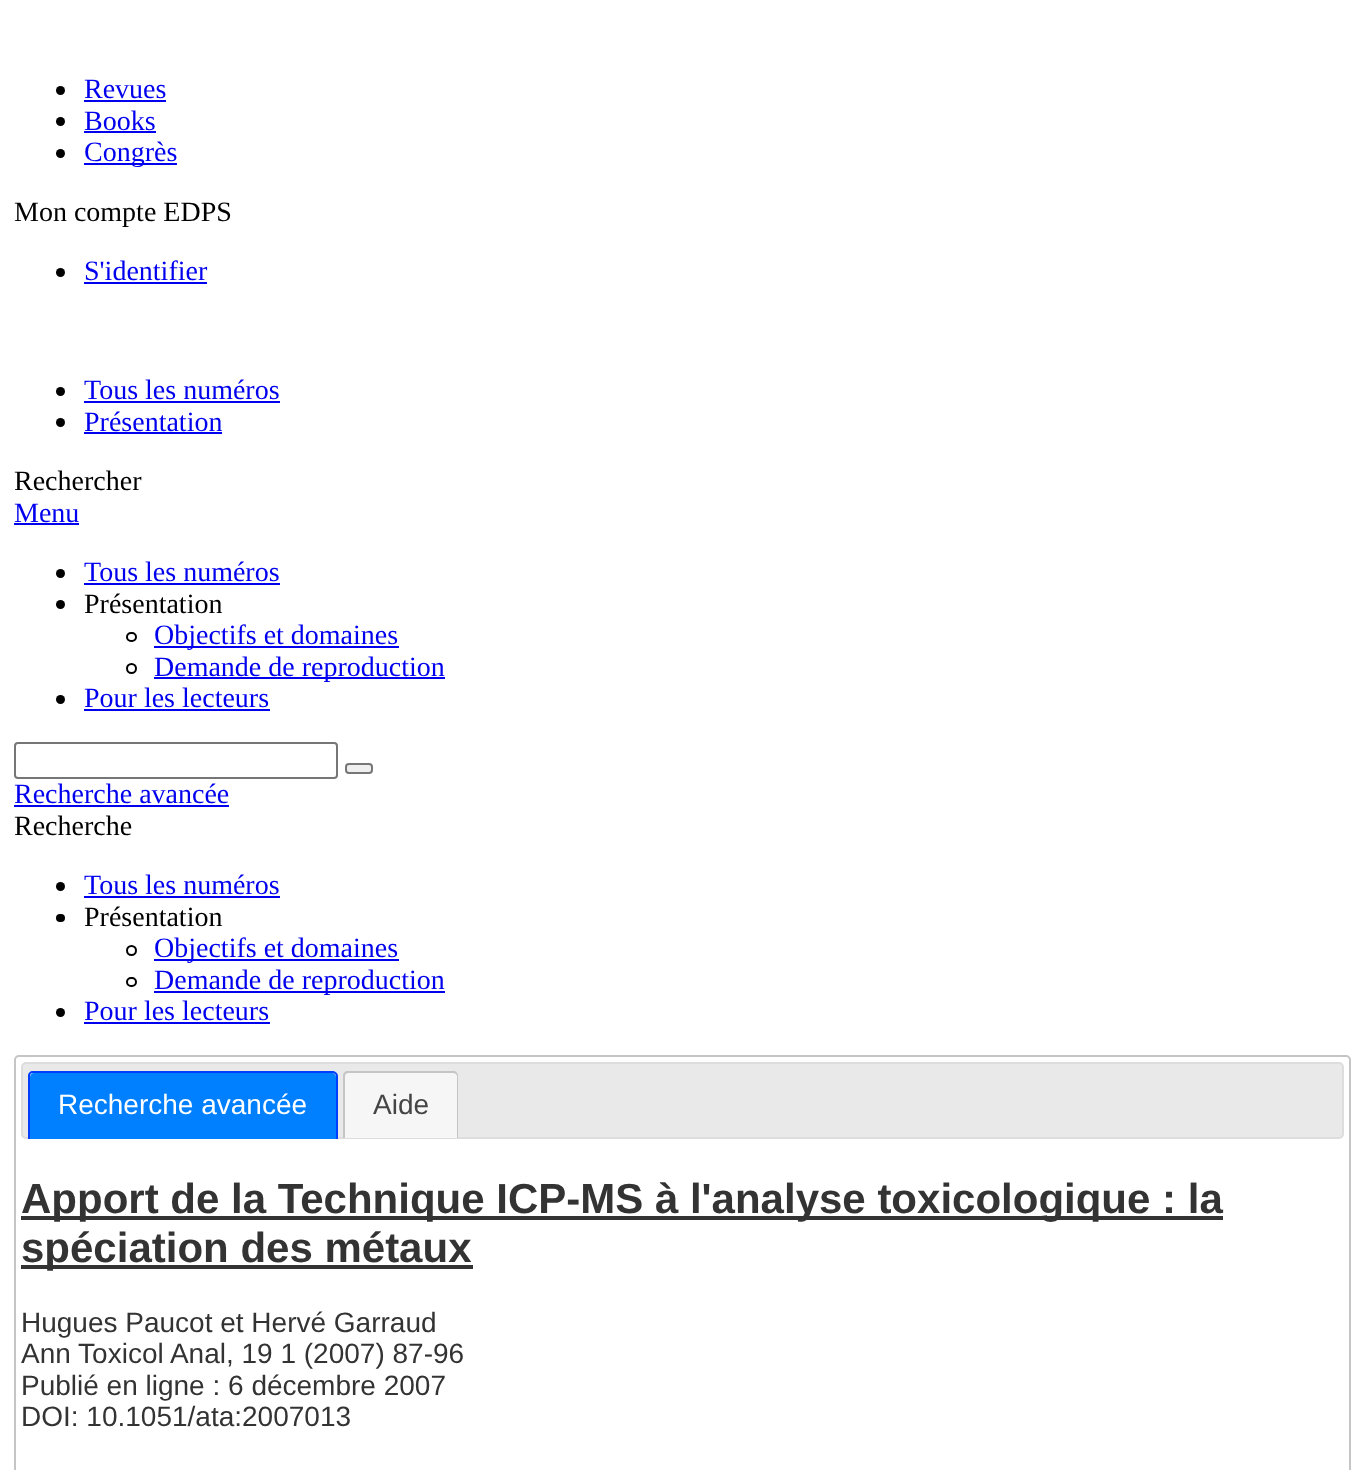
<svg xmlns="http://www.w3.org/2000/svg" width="1365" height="1470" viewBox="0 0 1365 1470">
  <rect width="100%" height="100%" fill="rgb(255,255,255)"/>
  <circle cx="60.5" cy="90.5" r="4.5" fill="rgb(0,0,0)"/>
  <text x="84" y="98" font-family="Liberation Serif" font-size="28" fill="rgb(0,0,238)">Revues</text>
  <rect x="84" y="100" width="82" height="2" fill="rgb(0,0,238)"/>
  <circle cx="60.5" cy="121.5" r="4.5" fill="rgb(0,0,0)"/>
  <text x="84" y="130" font-family="Liberation Serif" font-size="28" fill="rgb(0,0,238)">Books</text>
  <rect x="84" y="131" width="72" height="2" fill="rgb(0,0,238)"/>
  <circle cx="60.5" cy="153.5" r="4.5" fill="rgb(0,0,0)"/>
  <rect x="84" y="163" width="93" height="2" fill="rgb(0,0,238)"/>
  <text x="84" y="161" font-family="Liberation Serif" font-size="28" fill="rgb(0,0,238)">Congrès</text>
  <text x="14" y="221" font-family="Liberation Serif" font-size="28" fill="rgb(0,0,0)">Mon compte EDPS</text>
  <circle cx="60.5" cy="272.5" r="4.5" fill="rgb(0,0,0)"/>
  <text x="84" y="280" font-family="Liberation Serif" font-size="28" fill="rgb(0,0,238)">S'identifier</text>
  <rect x="84" y="282" width="123" height="2" fill="rgb(0,0,238)"/>
  <circle cx="60.5" cy="391.5" r="4.5" fill="rgb(0,0,0)"/>
  <text x="84" y="399" font-family="Liberation Serif" font-size="28" fill="rgb(0,0,238)">Tous les numéros</text>
  <rect x="84" y="401" width="196" height="2" fill="rgb(0,0,238)"/>
  <circle cx="60.5" cy="422.5" r="4.5" fill="rgb(0,0,0)"/>
  <text x="84" y="431" font-family="Liberation Serif" font-size="28" fill="rgb(0,0,238)">Présentation</text>
  <rect x="84" y="432" width="138" height="2" fill="rgb(0,0,238)"/>
  <text x="14" y="490" font-family="Liberation Serif" font-size="28" fill="rgb(0,0,0)">Rechercher</text>
  <text x="14" y="522" font-family="Liberation Serif" font-size="28" fill="rgb(0,0,238)">Menu</text>
  <rect x="14" y="523" width="65" height="2" fill="rgb(0,0,238)"/>
  <circle cx="60.5" cy="573.5" r="4.5" fill="rgb(0,0,0)"/>
  <text x="84" y="581" font-family="Liberation Serif" font-size="28" fill="rgb(0,0,238)">Tous les numéros</text>
  <rect x="84" y="583" width="196" height="2" fill="rgb(0,0,238)"/>
  <circle cx="60.5" cy="604.5" r="4.5" fill="rgb(0,0,0)"/>
  <text x="84" y="613" font-family="Liberation Serif" font-size="28" fill="rgb(0,0,0)">Présentation</text>
  <rect x="127" y="633" width="9" height="8" rx="4" fill="none" stroke="rgb(0,0,0)" stroke-width="2"/>
  <rect x="154" y="646" width="245" height="2" fill="rgb(0,0,238)"/>
  <text x="154" y="644" font-family="Liberation Serif" font-size="28" fill="rgb(0,0,238)">Objectifs et domaines</text>
  <circle cx="131.5" cy="668.5" r="4.5" fill="none" stroke="rgb(0,0,0)" stroke-width="2"/>
  <rect x="154" y="677" width="291" height="2" fill="rgb(0,0,238)"/>
  <text x="154" y="676" font-family="Liberation Serif" font-size="28" fill="rgb(0,0,238)">Demande de reproduction</text>
  <circle cx="60.5" cy="699.5" r="4.5" fill="rgb(0,0,0)"/>
  <text x="84" y="707" font-family="Liberation Serif" font-size="28" fill="rgb(0,0,238)">Pour les lecteurs</text>
  <rect x="84" y="709" width="186" height="2" fill="rgb(0,0,238)"/>
  <rect x="15" y="743" width="322" height="35" rx="3" fill="none" stroke="rgb(118,118,118)" stroke-width="2"/>
  <rect x="346" y="764" width="26" height="9" rx="3" fill="rgb(239,239,239)" stroke="rgb(118,118,118)" stroke-width="2"/>
  <text x="14" y="803" font-family="Liberation Serif" font-size="28" fill="rgb(0,0,238)">Recherche avancée</text>
  <rect x="14" y="805" width="215" height="2" fill="rgb(0,0,238)"/>
  <text x="14" y="835" font-family="Liberation Serif" font-size="28" fill="rgb(0,0,0)">Recherche</text>
  <circle cx="60.5" cy="886.5" r="4.5" fill="rgb(0,0,0)"/>
  <text x="84" y="894" font-family="Liberation Serif" font-size="28" fill="rgb(0,0,238)">Tous les numéros</text>
  <rect x="84" y="896" width="196" height="2" fill="rgb(0,0,238)"/>
  <rect x="56" y="914" width="9" height="8" rx="4" fill="rgb(0,0,0)"/>
  <text x="84" y="926" font-family="Liberation Serif" font-size="28" fill="rgb(0,0,0)">Présentation</text>
  <circle cx="131.5" cy="950.5" r="4.5" fill="none" stroke="rgb(0,0,0)" stroke-width="2"/>
  <rect x="154" y="959" width="245" height="2" fill="rgb(0,0,238)"/>
  <text x="154" y="957" font-family="Liberation Serif" font-size="28" fill="rgb(0,0,238)">Objectifs et domaines</text>
  <rect x="127" y="978" width="9" height="8" rx="4" fill="none" stroke="rgb(0,0,0)" stroke-width="2"/>
  <rect x="154" y="991" width="291" height="2" fill="rgb(0,0,238)"/>
  <text x="154" y="989" font-family="Liberation Serif" font-size="28" fill="rgb(0,0,238)">Demande de reproduction</text>
  <circle cx="60.5" cy="1012.5" r="4.5" fill="rgb(0,0,0)"/>
  <text x="84" y="1020" font-family="Liberation Serif" font-size="28" fill="rgb(0,0,238)">Pour les lecteurs</text>
  <rect x="84" y="1022" width="186" height="2" fill="rgb(0,0,238)"/>
  <rect x="15" y="1056" width="1335" height="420" rx="4" fill="none" stroke="rgb(197,197,197)" stroke-width="2"/>
  <rect x="22" y="1063" width="1321" height="75" rx="4" fill="rgb(233,233,233)" stroke="rgb(221,221,221)" stroke-width="2"/>
  <path d="M34 1073H332C334 1073 336 1075 336 1077V1139H30V1077C30 1075 32 1073 34 1073Z" fill="rgb(0,127,255)"/>
  <path d="M33 1071H332C335 1071 338 1073 338 1076V1139H28V1076C28 1073 30 1071 33 1071ZM33 1073H332C334 1073 336 1074 336 1076V1139H30V1076C30 1074 31 1073 33 1073Z" fill="rgb(0,62,255)" fill-rule="evenodd"/>
  <text x="58" y="1114" font-family="Liberation Sans" font-size="28" fill="rgb(255,255,255)">Recherche avancée</text>
  <path d="M349 1073H453C455 1073 457 1075 457 1077V1138H345V1077C345 1075 347 1073 349 1073Z" fill="rgb(246,246,246)"/>
  <path d="M348 1071H453C456 1071 458 1073 458 1076V1138H343V1076C343 1073 345 1071 348 1071ZM348 1073H453C455 1073 457 1074 457 1076V1138H345V1076C345 1074 346 1073 348 1073Z" fill="rgb(197,197,197)" fill-rule="evenodd"/>
  <text x="373" y="1114" font-family="Liberation Sans" font-size="28" fill="rgb(69,69,69)">Aide</text>
  <rect x="21" y="1216" width="1202" height="4" fill="rgb(51,51,51)"/>
  <text x="21" y="1213" font-family="Liberation Sans" font-size="42" font-weight="bold" fill="rgb(51,51,51)">Apport de la Technique ICP-MS à l'analyse toxicologique : la</text>
  <rect x="21" y="1265" width="452" height="4" fill="rgb(51,51,51)"/>
  <text x="21" y="1262" font-family="Liberation Sans" font-size="42" font-weight="bold" fill="rgb(51,51,51)">spéciation des métaux</text>
  <g font-family="Liberation Sans" font-size="28" fill="rgb(51,51,51)">
    <text>
      <tspan x="21" y="1332">Hugues Paucot et Hervé Garraud</tspan>
      <tspan x="21" y="1363">Ann Toxicol Anal, 19 1 (2007) 87-96</tspan>
      <tspan x="21" y="1395">Publié en ligne : 6 décembre 2007</tspan>
      <tspan x="21" y="1426">DOI: 10.1051/ata:2007013</tspan>
    </text>
  </g>
</svg>
